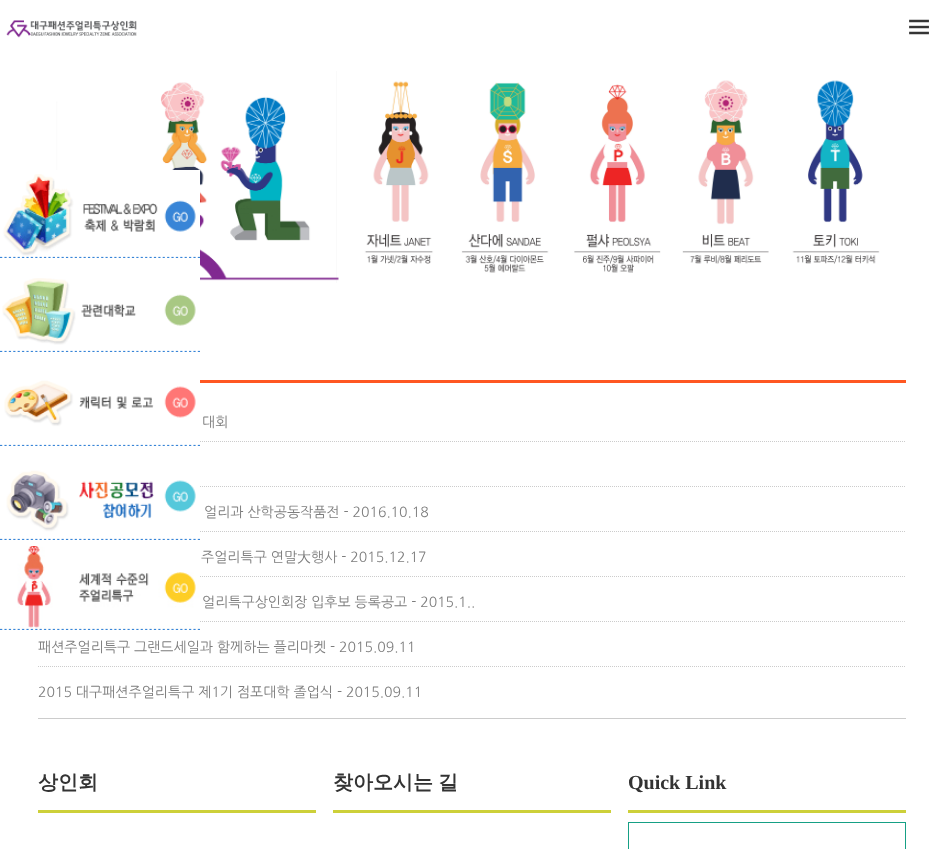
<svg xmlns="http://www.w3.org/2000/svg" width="944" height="849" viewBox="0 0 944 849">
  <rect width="100%" height="100%" fill="rgb(255,255,255)"/>
  <image x="6" y="20" width="131" height="18" href="pic1.png"/>
  <image x="909" y="19" width="20" height="16" href="pic2.png"/>
  <image x="54" y="71" width="826" height="212" href="pic8.png"/>
  <path d="M38 441.5H906" fill="none" stroke="rgb(204,204,204)" stroke-dasharray="1 1"/>
  <path d="M38 486.5H906" fill="none" stroke="rgb(204,204,204)" stroke-dasharray="1 1"/>
  <path d="M38 531.5H906" fill="none" stroke="rgb(204,204,204)" stroke-dasharray="1 1"/>
  <path d="M38 576.5H906" fill="none" stroke="rgb(204,204,204)" stroke-dasharray="1 1"/>
  <path d="M38 621.5H906" fill="none" stroke="rgb(204,204,204)" stroke-dasharray="1 1"/>
  <rect x="38" y="170" width="162" height="452" fill="rgb(255,255,255)"/>
  <image x="0" y="174" width="200" height="84" href="pic3.png"/>
  <image x="0" y="278" width="200" height="74" href="pic4.png"/>
  <image x="0" y="380" width="200" height="66" href="pic5.png"/>
  <image x="0" y="470" width="200" height="70" href="pic6.png"/>
  <image x="0" y="546" width="200" height="84" href="pic7.png"/>
  <rect x="200" y="380" width="706" height="3" fill="rgb(255,87,34)"/>
  <rect x="38" y="718" width="868" height="1" fill="rgb(204,204,204)"/>
  <g font-family="NanumGothic" font-size="14" fill="rgb(125,125,125)">
    <text x="202" y="427">대회</text>
    <text x="204" y="517">얼리과 산학공동작품전 - 2016.10.18</text>
    <text x="201" y="562">주얼리특구 연말</text>
  </g>
  <text x="297" y="562" font-family="WenQuanYi Zen Hei" font-size="14" font-weight="500" fill="rgb(125,125,125)">大</text>
  <g font-family="NanumGothic" font-size="14" fill="rgb(125,125,125)">
    <text x="311" y="562">행사 - 2015.12.17</text>
    <text x="202" y="607">얼리특구상인회장 입후보 등록공고 - 2015.1..</text>
  </g>
  <path d="M38 666.5H906" fill="none" stroke="rgb(204,204,204)" stroke-dasharray="1 1"/>
  <g font-family="NanumGothic" font-size="14" fill="rgb(125,125,125)">
    <text x="38" y="652">패션주얼리특구 그랜드세일과 함께하는 플리마켓 - 2015.09.11</text>
    <text x="38" y="697">2015 대구패션주얼리특구 제1기 점포대학 졸업식 - 2015.09.11</text>
  </g>
  <rect x="38" y="810" width="278" height="3" fill="rgb(205,208,57)"/>
  <text x="38" y="789" font-family="WenQuanYi Zen Hei" font-size="20" font-weight="bold" fill="rgb(51,51,51)">상인회</text>
  <rect x="333" y="810" width="278" height="3" fill="rgb(205,208,57)"/>
  <text x="333" y="789" word-spacing="-1" font-family="WenQuanYi Zen Hei" font-size="20" font-weight="bold" fill="rgb(51,51,51)">찾아오시는 길</text>
  <rect x="628" y="810" width="278" height="3" fill="rgb(205,208,57)"/>
  <text x="628" y="789" font-family="Liberation Serif" font-size="20" font-weight="bold" fill="rgb(51,51,51)">Quick Link</text>
  <rect x="628.5" y="822.5" width="277" height="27" fill="none" stroke="rgb(22,160,133)"/>
</svg>
